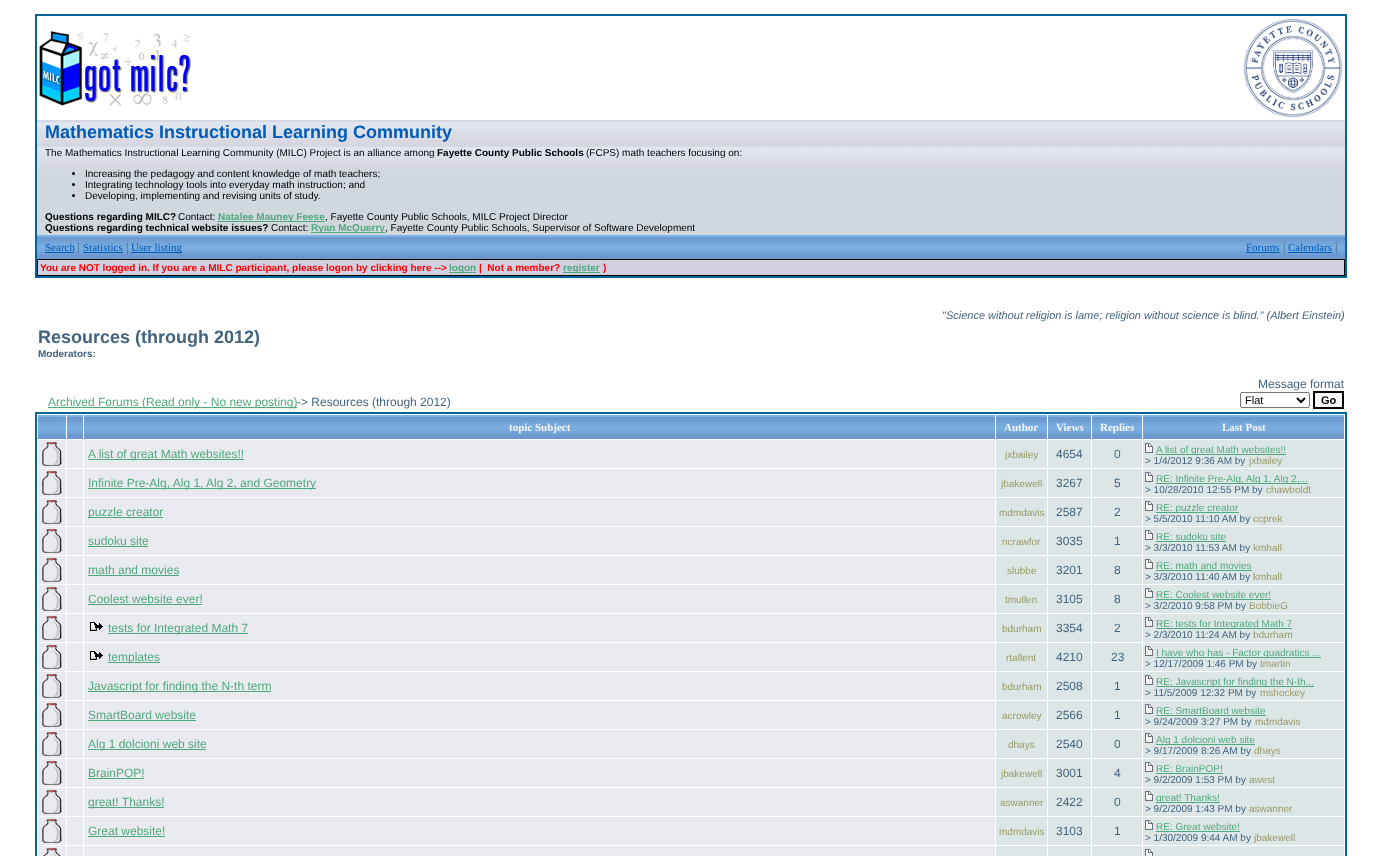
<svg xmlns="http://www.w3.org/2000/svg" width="1382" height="856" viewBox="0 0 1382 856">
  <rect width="100%" height="100%" fill="rgb(255,255,255)"/>
  <rect x="36" y="15" width="1310" height="262" fill="none" stroke="rgb(0,102,153)" stroke-width="2"/>
  <image x="39" y="31" width="153" height="75" href="pic1.png"/>
  <image x="1243" y="18" width="100" height="100" href="pic2.png"/>
  <rect x="37" y="144" width="1308" height="1" fill="rgb(208,215,221)"/>
  <image x="37" y="120" width="1308" height="24" href="pic3.png"/>
  <text x="45" y="138" font-family="Liberation Sans" font-size="18" font-weight="bold" fill="rgb(0,92,185)">Mathematics Instructional Learning Community</text>
  <rect x="37" y="169" width="1308" height="66" fill="rgb(208,215,221)"/>
  <image x="37" y="145" width="1308" height="24" href="pic3.png"/>
  <text x="45" y="156" font-family="Liberation Sans" font-size="10" fill="rgb(0,0,0)">The Mathematics Instructional Learning Community (MILC) Project is an alliance among</text>
  <text x="437" y="156" font-family="Liberation Sans" font-size="10" font-weight="bold" fill="rgb(0,0,0)">Fayette County Public Schools</text>
  <text x="586" y="156" font-family="Liberation Sans" font-size="10" fill="rgb(0,0,0)">(FCPS) math teachers focusing on:</text>
  <circle cx="73.5" cy="173.5" r="1.5" fill="rgb(0,0,0)"/>
  <text x="85" y="177" font-family="Liberation Sans" font-size="10" fill="rgb(0,0,0)">Increasing the pedagogy and content knowledge of math teachers;</text>
  <circle cx="73.5" cy="184.5" r="1.5" fill="rgb(0,0,0)"/>
  <text x="85" y="188" font-family="Liberation Sans" font-size="10" fill="rgb(0,0,0)">Integrating technology tools into everyday math instruction; and</text>
  <circle cx="73.5" cy="195.5" r="1.5" fill="rgb(0,0,0)"/>
  <text x="85" y="199" font-family="Liberation Sans" font-size="10" fill="rgb(0,0,0)">Developing, implementing and revising units of study.</text>
  <text x="45" y="220" font-family="Liberation Sans" font-size="10" font-weight="bold" fill="rgb(0,0,0)">Questions regarding MILC?</text>
  <text x="178" y="220" font-family="Liberation Sans" font-size="10" fill="rgb(0,0,0)">Contact:</text>
  <rect x="218" y="221" width="107" height="1" fill="rgb(80,169,126)"/>
  <text x="218" y="220" font-family="Liberation Sans" font-size="10" font-weight="bold" fill="rgb(80,169,126)">Natalee Mauney Feese</text>
  <text x="325" y="220" font-family="Liberation Sans" font-size="10" fill="rgb(0,0,0)">, Fayette County Public Schools, MILC Project Director</text>
  <text x="45" y="231" font-family="Liberation Sans" font-size="10" font-weight="bold" fill="rgb(0,0,0)">Questions regarding technical website issues?</text>
  <text x="271" y="231" font-family="Liberation Sans" font-size="10" fill="rgb(0,0,0)">Contact:</text>
  <rect x="311" y="232" width="74" height="1" fill="rgb(80,169,126)"/>
  <text x="311" y="231" font-family="Liberation Sans" font-size="10" font-weight="bold" fill="rgb(80,169,126)">Ryan McQuerry</text>
  <text x="385" y="231" font-family="Liberation Sans" font-size="10" fill="rgb(0,0,0)">, Fayette County Public Schools, Supervisor of Software Development</text>
  <rect x="37" y="255" width="1308" height="4" fill="rgb(108,152,207)"/>
  <image x="37" y="235" width="1308" height="20" href="pic4.png"/>
  <text x="45" y="251" font-family="Liberation Serif" font-size="11" fill="rgb(0,92,185)">Search</text>
  <rect x="45" y="252" width="29" height="1" fill="rgb(0,92,185)"/>
  <text x="77" y="251" font-family="Liberation Serif" font-size="12" fill="rgb(67,100,126)">|</text>
  <text x="83" y="251" font-family="Liberation Serif" font-size="11" fill="rgb(0,92,185)">Statistics</text>
  <rect x="83" y="252" width="40" height="1" fill="rgb(0,92,185)"/>
  <text x="126" y="251" font-family="Liberation Serif" font-size="12" fill="rgb(67,100,126)">|</text>
  <rect x="131" y="252" width="51" height="1" fill="rgb(0,92,185)"/>
  <g font-family="Liberation Serif" font-size="11" fill="rgb(0,92,185)">
    <text x="131" y="251">User listing</text>
    <text x="1246" y="251">Forums</text>
  </g>
  <rect x="1246" y="252" width="34" height="1" fill="rgb(0,92,185)"/>
  <text x="1283" y="251" font-family="Liberation Serif" font-size="12" fill="rgb(67,100,126)">|</text>
  <text x="1288" y="251" font-family="Liberation Serif" font-size="11" fill="rgb(0,92,185)">Calendars</text>
  <rect x="1288" y="252" width="44" height="1" fill="rgb(0,92,185)"/>
  <text x="1335" y="251" font-family="Liberation Serif" font-size="12" fill="rgb(67,100,126)">|</text>
  <rect x="37.5" y="259.5" width="1307" height="16" fill="rgb(208,208,224)" stroke="rgb(0,0,0)"/>
  <text x="40" y="271" font-family="Liberation Sans" font-size="10" font-weight="bold" fill="rgb(255,0,0)">You are NOT logged in. If you are a MILC participant, please logon by clicking here --&gt;</text>
  <rect x="449" y="272" width="27" height="1" fill="rgb(80,169,126)"/>
  <text x="449" y="271" font-family="Liberation Sans" font-size="10" font-weight="bold" fill="rgb(80,169,126)">logon</text>
  <text x="479" y="271" font-family="Liberation Sans" font-size="10" font-weight="bold" fill="rgb(255,0,0)" xml:space="preserve">|  Not a member?</text>
  <rect x="563" y="272" width="37" height="1" fill="rgb(80,169,126)"/>
  <text x="563" y="271" font-family="Liberation Sans" font-size="10" font-weight="bold" fill="rgb(80,169,126)">register</text>
  <text x="603" y="271" font-family="Liberation Sans" font-size="10" font-weight="bold" fill="rgb(255,0,0)">)</text>
  <text x="942" y="319" font-family="Liberation Sans" font-size="11" font-style="italic" fill="rgb(67,100,126)">"Science without religion is lame; religion without science is blind." (Albert Einstein)</text>
  <text x="38" y="343" font-family="Liberation Sans" font-size="18" font-weight="bold" fill="rgb(67,100,126)">Resources (through 2012)</text>
  <text x="38" y="357" font-family="Liberation Sans" font-size="10" font-weight="bold" fill="rgb(67,100,126)">Moderators:</text>
  <rect x="48" y="407" width="249" height="1" fill="rgb(80,169,126)"/>
  <text x="48" y="406" font-family="Liberation Sans" font-size="12" fill="rgb(80,169,126)">Archived Forums (Read only - No new posting)</text>
  <g font-family="Liberation Sans" font-size="12" fill="rgb(67,100,126)">
    <text x="297" y="406">-&gt; Resources (through 2012)</text>
    <text x="1258" y="388">Message format</text>
  </g>
  <rect x="1240.5" y="392.5" width="69" height="15" rx="1.5" fill="none" stroke="rgb(118,118,118)"/>
  <path d="M1297 398L1301 402L1305 398" fill="none" stroke="rgb(0,0,0)" stroke-width="2"/>
  <text x="1245" y="404" font-family="Liberation Sans" font-size="11" fill="rgb(0,0,0)">Flat</text>
  <rect x="1314" y="392" width="29" height="16" fill="rgb(250,250,250)" stroke="rgb(0,0,0)" stroke-width="2"/>
  <text x="1321" y="404" font-family="Liberation Sans" font-size="11" font-weight="bold" fill="rgb(0,0,0)">Go</text>
  <rect x="36" y="413" width="1310" height="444" fill="none" stroke="rgb(0,102,153)" stroke-width="2"/>
  <rect x="38" y="435" width="28" height="4" fill="rgb(108,152,207)"/>
  <image x="38" y="415" width="28" height="20" href="pic5.png"/>
  <rect x="67" y="435" width="16" height="4" fill="rgb(108,152,207)"/>
  <image x="67" y="415" width="16" height="20" href="pic6.png"/>
  <rect x="84" y="435" width="911" height="4" fill="rgb(108,152,207)"/>
  <image x="84" y="415" width="911" height="20" href="pic7.png"/>
  <text x="509" y="431" font-family="Liberation Serif" font-size="11" font-weight="bold" fill="rgb(245,245,245)">topic Subject</text>
  <rect x="996" y="435" width="51" height="4" fill="rgb(108,152,207)"/>
  <image x="996" y="415" width="51" height="20" href="pic8.png"/>
  <text x="1004" y="431" font-family="Liberation Serif" font-size="11" font-weight="bold" fill="rgb(245,245,245)">Author</text>
  <rect x="1048" y="435" width="43" height="4" fill="rgb(108,152,207)"/>
  <image x="1048" y="415" width="43" height="20" href="pic9.png"/>
  <text x="1056" y="431" font-family="Liberation Serif" font-size="11" font-weight="bold" fill="rgb(245,245,245)">Views</text>
  <rect x="1092" y="435" width="50" height="4" fill="rgb(108,152,207)"/>
  <image x="1092" y="415" width="50" height="20" href="pic10.png"/>
  <text x="1100" y="431" font-family="Liberation Serif" font-size="11" font-weight="bold" fill="rgb(245,245,245)">Replies</text>
  <rect x="1143" y="435" width="201" height="4" fill="rgb(108,152,207)"/>
  <image x="1143" y="415" width="201" height="20" href="pic11.png"/>
  <text x="1222" y="431" font-family="Liberation Serif" font-size="11" font-weight="bold" fill="rgb(245,245,245)">Last Post</text>
  <rect x="38" y="440" width="28" height="28" fill="rgb(233,234,239)"/>
  <image x="42" y="442" width="20" height="24" href="pic12.png"/>
  <rect x="67" y="440" width="16" height="28" fill="rgb(233,234,239)"/>
  <rect x="84" y="440" width="911" height="28" fill="rgb(233,234,239)"/>
  <rect x="88" y="459" width="156" height="1" fill="rgb(80,169,126)"/>
  <text x="88" y="458" font-family="Liberation Sans" font-size="12" fill="rgb(80,169,126)">A list of great Math websites!!</text>
  <rect x="996" y="440" width="51" height="28" fill="rgb(221,230,230)"/>
  <text x="1005" y="458" font-family="Liberation Sans" font-size="10" fill="rgb(153,153,102)">jxbailey</text>
  <rect x="1048" y="440" width="43" height="28" fill="rgb(221,230,230)"/>
  <text x="1056" y="458" font-family="Liberation Sans" font-size="12" fill="rgb(67,100,126)">4654</text>
  <rect x="1092" y="440" width="50" height="28" fill="rgb(221,230,230)"/>
  <text x="1114" y="458" font-family="Liberation Sans" font-size="12" fill="rgb(67,100,126)">0</text>
  <rect x="1143" y="440" width="201" height="28" fill="rgb(221,230,230)"/>
  <image x="1145" y="443" width="8" height="10" href="pic13.png"/>
  <rect x="1156" y="454" width="130" height="1" fill="rgb(80,169,126)"/>
  <text x="1156" y="453" font-family="Liberation Sans" font-size="10" fill="rgb(80,169,126)">A list of great Math websites!!</text>
  <text x="1145" y="464" font-family="Liberation Sans" font-size="10" fill="rgb(67,100,126)">&gt; 1/4/2012 9:36 AM by</text>
  <text x="1249" y="464" font-family="Liberation Sans" font-size="10" fill="rgb(153,153,102)">jxbailey</text>
  <rect x="38" y="469" width="28" height="28" fill="rgb(233,234,239)"/>
  <image x="42" y="471" width="20" height="24" href="pic12.png"/>
  <rect x="67" y="469" width="16" height="28" fill="rgb(233,234,239)"/>
  <rect x="84" y="469" width="911" height="28" fill="rgb(233,234,239)"/>
  <rect x="88" y="488" width="228" height="1" fill="rgb(80,169,126)"/>
  <text x="88" y="487" font-family="Liberation Sans" font-size="12" fill="rgb(80,169,126)">Infinite Pre-Alg, Alg 1, Alg 2, and Geometry</text>
  <rect x="996" y="469" width="51" height="28" fill="rgb(221,230,230)"/>
  <text x="1001" y="487" font-family="Liberation Sans" font-size="10" fill="rgb(153,153,102)">jbakewell</text>
  <rect x="1048" y="469" width="43" height="28" fill="rgb(221,230,230)"/>
  <text x="1056" y="487" font-family="Liberation Sans" font-size="12" fill="rgb(67,100,126)">3267</text>
  <rect x="1092" y="469" width="50" height="28" fill="rgb(221,230,230)"/>
  <text x="1114" y="487" font-family="Liberation Sans" font-size="12" fill="rgb(67,100,126)">5</text>
  <rect x="1143" y="469" width="201" height="28" fill="rgb(221,230,230)"/>
  <image x="1145" y="472" width="8" height="10" href="pic13.png"/>
  <rect x="1156" y="483" width="152" height="1" fill="rgb(80,169,126)"/>
  <text x="1156" y="482" font-family="Liberation Sans" font-size="10" fill="rgb(80,169,126)">RE: Infinite Pre-Alg, Alg 1, Alg 2,...</text>
  <text x="1145" y="493" font-family="Liberation Sans" font-size="10" fill="rgb(67,100,126)">&gt; 10/28/2010 12:55 PM by</text>
  <text x="1266" y="493" font-family="Liberation Sans" font-size="10" fill="rgb(153,153,102)">chawboldt</text>
  <rect x="38" y="498" width="28" height="28" fill="rgb(233,234,239)"/>
  <image x="42" y="500" width="20" height="24" href="pic12.png"/>
  <rect x="67" y="498" width="16" height="28" fill="rgb(233,234,239)"/>
  <rect x="84" y="498" width="911" height="28" fill="rgb(233,234,239)"/>
  <rect x="88" y="517" width="75" height="1" fill="rgb(80,169,126)"/>
  <text x="88" y="516" font-family="Liberation Sans" font-size="12" fill="rgb(80,169,126)">puzzle creator</text>
  <rect x="996" y="498" width="51" height="28" fill="rgb(221,230,230)"/>
  <text x="999" y="516" font-family="Liberation Sans" font-size="10" fill="rgb(153,153,102)">mdmdavis</text>
  <rect x="1048" y="498" width="43" height="28" fill="rgb(221,230,230)"/>
  <text x="1056" y="516" font-family="Liberation Sans" font-size="12" fill="rgb(67,100,126)">2587</text>
  <rect x="1092" y="498" width="50" height="28" fill="rgb(221,230,230)"/>
  <text x="1114" y="516" font-family="Liberation Sans" font-size="12" fill="rgb(67,100,126)">2</text>
  <rect x="1143" y="498" width="201" height="28" fill="rgb(221,230,230)"/>
  <image x="1145" y="501" width="8" height="10" href="pic13.png"/>
  <rect x="1156" y="512" width="83" height="1" fill="rgb(80,169,126)"/>
  <text x="1156" y="511" font-family="Liberation Sans" font-size="10" fill="rgb(80,169,126)">RE: puzzle creator</text>
  <text x="1145" y="522" font-family="Liberation Sans" font-size="10" fill="rgb(67,100,126)">&gt; 5/5/2010 11:10 AM by</text>
  <text x="1253" y="522" font-family="Liberation Sans" font-size="10" fill="rgb(153,153,102)">ccprek</text>
  <rect x="38" y="527" width="28" height="28" fill="rgb(233,234,239)"/>
  <image x="42" y="529" width="20" height="24" href="pic12.png"/>
  <rect x="67" y="527" width="16" height="28" fill="rgb(233,234,239)"/>
  <rect x="84" y="527" width="911" height="28" fill="rgb(233,234,239)"/>
  <text x="88" y="545" font-family="Liberation Sans" font-size="12" fill="rgb(80,169,126)">sudoku site</text>
  <rect x="88" y="546" width="60" height="1" fill="rgb(80,169,126)"/>
  <rect x="996" y="527" width="51" height="28" fill="rgb(221,230,230)"/>
  <text x="1002" y="545" font-family="Liberation Sans" font-size="10" fill="rgb(153,153,102)">ncrawfor</text>
  <rect x="1048" y="527" width="43" height="28" fill="rgb(221,230,230)"/>
  <text x="1056" y="545" font-family="Liberation Sans" font-size="12" fill="rgb(67,100,126)">3035</text>
  <rect x="1092" y="527" width="50" height="28" fill="rgb(221,230,230)"/>
  <text x="1114" y="545" font-family="Liberation Sans" font-size="12" fill="rgb(67,100,126)">1</text>
  <rect x="1143" y="527" width="201" height="28" fill="rgb(221,230,230)"/>
  <image x="1145" y="530" width="8" height="10" href="pic13.png"/>
  <text x="1156" y="540" font-family="Liberation Sans" font-size="10" fill="rgb(80,169,126)">RE: sudoku site</text>
  <rect x="1156" y="541" width="70" height="1" fill="rgb(80,169,126)"/>
  <text x="1145" y="551" font-family="Liberation Sans" font-size="10" fill="rgb(67,100,126)">&gt; 3/3/2010 11:53 AM by</text>
  <text x="1253" y="551" font-family="Liberation Sans" font-size="10" fill="rgb(153,153,102)">kmhall</text>
  <rect x="38" y="556" width="28" height="28" fill="rgb(233,234,239)"/>
  <image x="42" y="558" width="20" height="24" href="pic12.png"/>
  <rect x="67" y="556" width="16" height="28" fill="rgb(233,234,239)"/>
  <rect x="84" y="556" width="911" height="28" fill="rgb(233,234,239)"/>
  <text x="88" y="574" font-family="Liberation Sans" font-size="12" fill="rgb(80,169,126)">math and movies</text>
  <rect x="88" y="575" width="91" height="1" fill="rgb(80,169,126)"/>
  <rect x="996" y="556" width="51" height="28" fill="rgb(221,230,230)"/>
  <text x="1007" y="574" font-family="Liberation Sans" font-size="10" fill="rgb(153,153,102)">slubbe</text>
  <rect x="1048" y="556" width="43" height="28" fill="rgb(221,230,230)"/>
  <text x="1056" y="574" font-family="Liberation Sans" font-size="12" fill="rgb(67,100,126)">3201</text>
  <rect x="1092" y="556" width="50" height="28" fill="rgb(221,230,230)"/>
  <text x="1114" y="574" font-family="Liberation Sans" font-size="12" fill="rgb(67,100,126)">8</text>
  <rect x="1143" y="556" width="201" height="28" fill="rgb(221,230,230)"/>
  <image x="1145" y="559" width="8" height="10" href="pic13.png"/>
  <text x="1156" y="569" font-family="Liberation Sans" font-size="10" fill="rgb(80,169,126)">RE: math and movies</text>
  <rect x="1156" y="570" width="96" height="1" fill="rgb(80,169,126)"/>
  <text x="1145" y="580" font-family="Liberation Sans" font-size="10" fill="rgb(67,100,126)">&gt; 3/3/2010 11:40 AM by</text>
  <text x="1253" y="580" font-family="Liberation Sans" font-size="10" fill="rgb(153,153,102)">kmhall</text>
  <rect x="38" y="585" width="28" height="28" fill="rgb(233,234,239)"/>
  <image x="42" y="587" width="20" height="24" href="pic12.png"/>
  <rect x="67" y="585" width="16" height="28" fill="rgb(233,234,239)"/>
  <rect x="84" y="585" width="911" height="28" fill="rgb(233,234,239)"/>
  <text x="88" y="603" font-family="Liberation Sans" font-size="12" fill="rgb(80,169,126)">Coolest website ever!</text>
  <rect x="88" y="604" width="114" height="1" fill="rgb(80,169,126)"/>
  <rect x="996" y="585" width="51" height="28" fill="rgb(221,230,230)"/>
  <text x="1005" y="603" font-family="Liberation Sans" font-size="10" fill="rgb(153,153,102)">tmullen</text>
  <rect x="1048" y="585" width="43" height="28" fill="rgb(221,230,230)"/>
  <text x="1056" y="603" font-family="Liberation Sans" font-size="12" fill="rgb(67,100,126)">3105</text>
  <rect x="1092" y="585" width="50" height="28" fill="rgb(221,230,230)"/>
  <text x="1114" y="603" font-family="Liberation Sans" font-size="12" fill="rgb(67,100,126)">8</text>
  <rect x="1143" y="585" width="201" height="28" fill="rgb(221,230,230)"/>
  <image x="1145" y="588" width="8" height="10" href="pic13.png"/>
  <text x="1156" y="598" font-family="Liberation Sans" font-size="10" fill="rgb(80,169,126)">RE: Coolest website ever!</text>
  <rect x="1156" y="599" width="115" height="1" fill="rgb(80,169,126)"/>
  <text x="1145" y="609" font-family="Liberation Sans" font-size="10" fill="rgb(67,100,126)">&gt; 3/2/2010 9:58 PM by</text>
  <text x="1249" y="609" font-family="Liberation Sans" font-size="10" fill="rgb(153,153,102)">BobbieG</text>
  <rect x="38" y="614" width="28" height="28" fill="rgb(233,234,239)"/>
  <image x="42" y="616" width="20" height="24" href="pic12.png"/>
  <rect x="67" y="614" width="16" height="28" fill="rgb(233,234,239)"/>
  <rect x="84" y="614" width="911" height="28" fill="rgb(233,234,239)"/>
  <image x="90" y="622" width="13" height="9" href="pic14.png"/>
  <rect x="108" y="633" width="140" height="1" fill="rgb(80,169,126)"/>
  <text x="108" y="632" font-family="Liberation Sans" font-size="12" fill="rgb(80,169,126)">tests for Integrated Math 7</text>
  <rect x="996" y="614" width="51" height="28" fill="rgb(221,230,230)"/>
  <text x="1002" y="632" font-family="Liberation Sans" font-size="10" fill="rgb(153,153,102)">bdurham</text>
  <rect x="1048" y="614" width="43" height="28" fill="rgb(221,230,230)"/>
  <text x="1056" y="632" font-family="Liberation Sans" font-size="12" fill="rgb(67,100,126)">3354</text>
  <rect x="1092" y="614" width="50" height="28" fill="rgb(221,230,230)"/>
  <text x="1114" y="632" font-family="Liberation Sans" font-size="12" fill="rgb(67,100,126)">2</text>
  <rect x="1143" y="614" width="201" height="28" fill="rgb(221,230,230)"/>
  <image x="1145" y="617" width="8" height="10" href="pic13.png"/>
  <rect x="1156" y="628" width="136" height="1" fill="rgb(80,169,126)"/>
  <text x="1156" y="627" font-family="Liberation Sans" font-size="10" fill="rgb(80,169,126)">RE: tests for Integrated Math 7</text>
  <text x="1145" y="638" font-family="Liberation Sans" font-size="10" fill="rgb(67,100,126)">&gt; 2/3/2010 11:24 AM by</text>
  <text x="1253" y="638" font-family="Liberation Sans" font-size="10" fill="rgb(153,153,102)">bdurham</text>
  <rect x="38" y="643" width="28" height="28" fill="rgb(233,234,239)"/>
  <image x="42" y="645" width="20" height="24" href="pic12.png"/>
  <rect x="67" y="643" width="16" height="28" fill="rgb(233,234,239)"/>
  <rect x="84" y="643" width="911" height="28" fill="rgb(233,234,239)"/>
  <image x="90" y="651" width="13" height="9" href="pic14.png"/>
  <rect x="108" y="662" width="52" height="1" fill="rgb(80,169,126)"/>
  <text x="108" y="661" font-family="Liberation Sans" font-size="12" fill="rgb(80,169,126)">templates</text>
  <rect x="996" y="643" width="51" height="28" fill="rgb(221,230,230)"/>
  <text x="1006" y="661" font-family="Liberation Sans" font-size="10" fill="rgb(153,153,102)">rtallent</text>
  <rect x="1048" y="643" width="43" height="28" fill="rgb(221,230,230)"/>
  <text x="1056" y="661" font-family="Liberation Sans" font-size="12" fill="rgb(67,100,126)">4210</text>
  <rect x="1092" y="643" width="50" height="28" fill="rgb(221,230,230)"/>
  <text x="1111" y="661" font-family="Liberation Sans" font-size="12" fill="rgb(67,100,126)">23</text>
  <rect x="1143" y="643" width="201" height="28" fill="rgb(221,230,230)"/>
  <image x="1145" y="646" width="8" height="10" href="pic13.png"/>
  <rect x="1156" y="657" width="165" height="1" fill="rgb(80,169,126)"/>
  <text x="1156" y="656" font-family="Liberation Sans" font-size="10" fill="rgb(80,169,126)">I have who has - Factor quadratics ...</text>
  <text x="1145" y="667" font-family="Liberation Sans" font-size="10" fill="rgb(67,100,126)">&gt; 12/17/2009 1:46 PM by</text>
  <text x="1260" y="667" font-family="Liberation Sans" font-size="10" fill="rgb(153,153,102)">tmartin</text>
  <rect x="38" y="672" width="28" height="28" fill="rgb(233,234,239)"/>
  <image x="42" y="674" width="20" height="24" href="pic12.png"/>
  <rect x="67" y="672" width="16" height="28" fill="rgb(233,234,239)"/>
  <rect x="84" y="672" width="911" height="28" fill="rgb(233,234,239)"/>
  <rect x="88" y="691" width="183" height="1" fill="rgb(80,169,126)"/>
  <text x="88" y="690" font-family="Liberation Sans" font-size="12" fill="rgb(80,169,126)">Javascript for finding the N-th term</text>
  <rect x="996" y="672" width="51" height="28" fill="rgb(221,230,230)"/>
  <text x="1002" y="690" font-family="Liberation Sans" font-size="10" fill="rgb(153,153,102)">bdurham</text>
  <rect x="1048" y="672" width="43" height="28" fill="rgb(221,230,230)"/>
  <text x="1056" y="690" font-family="Liberation Sans" font-size="12" fill="rgb(67,100,126)">2508</text>
  <rect x="1092" y="672" width="50" height="28" fill="rgb(221,230,230)"/>
  <text x="1114" y="690" font-family="Liberation Sans" font-size="12" fill="rgb(67,100,126)">1</text>
  <rect x="1143" y="672" width="201" height="28" fill="rgb(221,230,230)"/>
  <image x="1145" y="675" width="8" height="10" href="pic13.png"/>
  <rect x="1156" y="686" width="158" height="1" fill="rgb(80,169,126)"/>
  <text x="1156" y="685" font-family="Liberation Sans" font-size="10" fill="rgb(80,169,126)">RE: Javascript for finding the N-th...</text>
  <text x="1145" y="696" font-family="Liberation Sans" font-size="10" fill="rgb(67,100,126)">&gt; 11/5/2009 12:32 PM by</text>
  <text x="1260" y="696" font-family="Liberation Sans" font-size="10" fill="rgb(153,153,102)">mshockey</text>
  <rect x="38" y="701" width="28" height="28" fill="rgb(233,234,239)"/>
  <image x="42" y="703" width="20" height="24" href="pic12.png"/>
  <rect x="67" y="701" width="16" height="28" fill="rgb(233,234,239)"/>
  <rect x="84" y="701" width="911" height="28" fill="rgb(233,234,239)"/>
  <text x="88" y="719" font-family="Liberation Sans" font-size="12" fill="rgb(80,169,126)">SmartBoard website</text>
  <rect x="88" y="720" width="108" height="1" fill="rgb(80,169,126)"/>
  <rect x="996" y="701" width="51" height="28" fill="rgb(221,230,230)"/>
  <text x="1002" y="719" font-family="Liberation Sans" font-size="10" fill="rgb(153,153,102)">acrowley</text>
  <rect x="1048" y="701" width="43" height="28" fill="rgb(221,230,230)"/>
  <text x="1056" y="719" font-family="Liberation Sans" font-size="12" fill="rgb(67,100,126)">2566</text>
  <rect x="1092" y="701" width="50" height="28" fill="rgb(221,230,230)"/>
  <text x="1114" y="719" font-family="Liberation Sans" font-size="12" fill="rgb(67,100,126)">1</text>
  <rect x="1143" y="701" width="201" height="28" fill="rgb(221,230,230)"/>
  <image x="1145" y="704" width="8" height="10" href="pic13.png"/>
  <text x="1156" y="714" font-family="Liberation Sans" font-size="10" fill="rgb(80,169,126)">RE: SmartBoard website</text>
  <rect x="1156" y="715" width="110" height="1" fill="rgb(80,169,126)"/>
  <text x="1145" y="725" font-family="Liberation Sans" font-size="10" fill="rgb(67,100,126)">&gt; 9/24/2009 3:27 PM by</text>
  <text x="1255" y="725" font-family="Liberation Sans" font-size="10" fill="rgb(153,153,102)">mdmdavis</text>
  <rect x="38" y="730" width="28" height="28" fill="rgb(233,234,239)"/>
  <image x="42" y="732" width="20" height="24" href="pic12.png"/>
  <rect x="67" y="730" width="16" height="28" fill="rgb(233,234,239)"/>
  <rect x="84" y="730" width="911" height="28" fill="rgb(233,234,239)"/>
  <rect x="88" y="749" width="118" height="1" fill="rgb(80,169,126)"/>
  <text x="88" y="748" font-family="Liberation Sans" font-size="12" fill="rgb(80,169,126)">Alg 1 dolcioni web site</text>
  <rect x="996" y="730" width="51" height="28" fill="rgb(221,230,230)"/>
  <text x="1008" y="748" font-family="Liberation Sans" font-size="10" fill="rgb(153,153,102)">dhays</text>
  <rect x="1048" y="730" width="43" height="28" fill="rgb(221,230,230)"/>
  <text x="1056" y="748" font-family="Liberation Sans" font-size="12" fill="rgb(67,100,126)">2540</text>
  <rect x="1092" y="730" width="50" height="28" fill="rgb(221,230,230)"/>
  <text x="1114" y="748" font-family="Liberation Sans" font-size="12" fill="rgb(67,100,126)">0</text>
  <rect x="1143" y="730" width="201" height="28" fill="rgb(221,230,230)"/>
  <image x="1145" y="733" width="8" height="10" href="pic13.png"/>
  <rect x="1156" y="744" width="99" height="1" fill="rgb(80,169,126)"/>
  <text x="1156" y="743" font-family="Liberation Sans" font-size="10" fill="rgb(80,169,126)">Alg 1 dolcioni web site</text>
  <text x="1145" y="754" font-family="Liberation Sans" font-size="10" fill="rgb(67,100,126)">&gt; 9/17/2009 8:26 AM by</text>
  <text x="1254" y="754" font-family="Liberation Sans" font-size="10" fill="rgb(153,153,102)">dhays</text>
  <rect x="38" y="759" width="28" height="28" fill="rgb(233,234,239)"/>
  <image x="42" y="761" width="20" height="24" href="pic12.png"/>
  <rect x="67" y="759" width="16" height="28" fill="rgb(233,234,239)"/>
  <rect x="84" y="759" width="911" height="28" fill="rgb(233,234,239)"/>
  <text x="88" y="777" font-family="Liberation Sans" font-size="12" fill="rgb(80,169,126)">BrainPOP!</text>
  <rect x="88" y="778" width="56" height="1" fill="rgb(80,169,126)"/>
  <rect x="996" y="759" width="51" height="28" fill="rgb(221,230,230)"/>
  <text x="1001" y="777" font-family="Liberation Sans" font-size="10" fill="rgb(153,153,102)">jbakewell</text>
  <rect x="1048" y="759" width="43" height="28" fill="rgb(221,230,230)"/>
  <text x="1056" y="777" font-family="Liberation Sans" font-size="12" fill="rgb(67,100,126)">3001</text>
  <rect x="1092" y="759" width="50" height="28" fill="rgb(221,230,230)"/>
  <text x="1114" y="777" font-family="Liberation Sans" font-size="12" fill="rgb(67,100,126)">4</text>
  <rect x="1143" y="759" width="201" height="28" fill="rgb(221,230,230)"/>
  <image x="1145" y="762" width="8" height="10" href="pic13.png"/>
  <text x="1156" y="772" font-family="Liberation Sans" font-size="10" fill="rgb(80,169,126)">RE: BrainPOP!</text>
  <rect x="1156" y="773" width="67" height="1" fill="rgb(80,169,126)"/>
  <text x="1145" y="783" font-family="Liberation Sans" font-size="10" fill="rgb(67,100,126)">&gt; 9/2/2009 1:53 PM by</text>
  <text x="1249" y="783" font-family="Liberation Sans" font-size="10" fill="rgb(153,153,102)">awest</text>
  <rect x="38" y="788" width="28" height="28" fill="rgb(233,234,239)"/>
  <image x="42" y="790" width="20" height="24" href="pic12.png"/>
  <rect x="67" y="788" width="16" height="28" fill="rgb(233,234,239)"/>
  <rect x="84" y="788" width="911" height="28" fill="rgb(233,234,239)"/>
  <rect x="88" y="807" width="76" height="1" fill="rgb(80,169,126)"/>
  <text x="88" y="806" font-family="Liberation Sans" font-size="12" fill="rgb(80,169,126)">great! Thanks!</text>
  <rect x="996" y="788" width="51" height="28" fill="rgb(221,230,230)"/>
  <text x="1000" y="806" font-family="Liberation Sans" font-size="10" fill="rgb(153,153,102)">aswanner</text>
  <rect x="1048" y="788" width="43" height="28" fill="rgb(221,230,230)"/>
  <text x="1056" y="806" font-family="Liberation Sans" font-size="12" fill="rgb(67,100,126)">2422</text>
  <rect x="1092" y="788" width="50" height="28" fill="rgb(221,230,230)"/>
  <text x="1114" y="806" font-family="Liberation Sans" font-size="12" fill="rgb(67,100,126)">0</text>
  <rect x="1143" y="788" width="201" height="28" fill="rgb(221,230,230)"/>
  <image x="1145" y="791" width="8" height="10" href="pic13.png"/>
  <rect x="1156" y="802" width="64" height="1" fill="rgb(80,169,126)"/>
  <text x="1156" y="801" font-family="Liberation Sans" font-size="10" fill="rgb(80,169,126)">great! Thanks!</text>
  <text x="1145" y="812" font-family="Liberation Sans" font-size="10" fill="rgb(67,100,126)">&gt; 9/2/2009 1:43 PM by</text>
  <text x="1249" y="812" font-family="Liberation Sans" font-size="10" fill="rgb(153,153,102)">aswanner</text>
  <rect x="38" y="817" width="28" height="28" fill="rgb(233,234,239)"/>
  <image x="42" y="819" width="20" height="24" href="pic12.png"/>
  <rect x="67" y="817" width="16" height="28" fill="rgb(233,234,239)"/>
  <rect x="84" y="817" width="911" height="28" fill="rgb(233,234,239)"/>
  <text x="88" y="835" font-family="Liberation Sans" font-size="12" fill="rgb(80,169,126)">Great website!</text>
  <rect x="88" y="836" width="77" height="1" fill="rgb(80,169,126)"/>
  <rect x="996" y="817" width="51" height="28" fill="rgb(221,230,230)"/>
  <text x="999" y="835" font-family="Liberation Sans" font-size="10" fill="rgb(153,153,102)">mdmdavis</text>
  <rect x="1048" y="817" width="43" height="28" fill="rgb(221,230,230)"/>
  <text x="1056" y="835" font-family="Liberation Sans" font-size="12" fill="rgb(67,100,126)">3103</text>
  <rect x="1092" y="817" width="50" height="28" fill="rgb(221,230,230)"/>
  <text x="1114" y="835" font-family="Liberation Sans" font-size="12" fill="rgb(67,100,126)">1</text>
  <rect x="1143" y="817" width="201" height="28" fill="rgb(221,230,230)"/>
  <image x="1145" y="820" width="8" height="10" href="pic13.png"/>
  <text x="1156" y="830" font-family="Liberation Sans" font-size="10" fill="rgb(80,169,126)">RE: Great website!</text>
  <rect x="1156" y="831" width="84" height="1" fill="rgb(80,169,126)"/>
  <text x="1145" y="841" font-family="Liberation Sans" font-size="10" fill="rgb(67,100,126)">&gt; 1/30/2009 9:44 AM by</text>
  <text x="1254" y="841" font-family="Liberation Sans" font-size="10" fill="rgb(153,153,102)">jbakewell</text>
  <rect x="38" y="846" width="28" height="10" fill="rgb(233,234,239)"/>
  <image x="43" y="848" width="18" height="8" href="pic15.png"/>
  <rect x="67" y="846" width="16" height="10" fill="rgb(233,234,239)"/>
  <rect x="84" y="846" width="911" height="10" fill="rgb(233,234,239)"/>
  <rect x="996" y="846" width="51" height="10" fill="rgb(221,230,230)"/>
  <rect x="1048" y="846" width="43" height="10" fill="rgb(221,230,230)"/>
  <rect x="1092" y="846" width="50" height="10" fill="rgb(221,230,230)"/>
  <rect x="1143" y="846" width="201" height="10" fill="rgb(221,230,230)"/>
  <image x="1145" y="849" width="8" height="7" href="pic16.png"/>
</svg>
